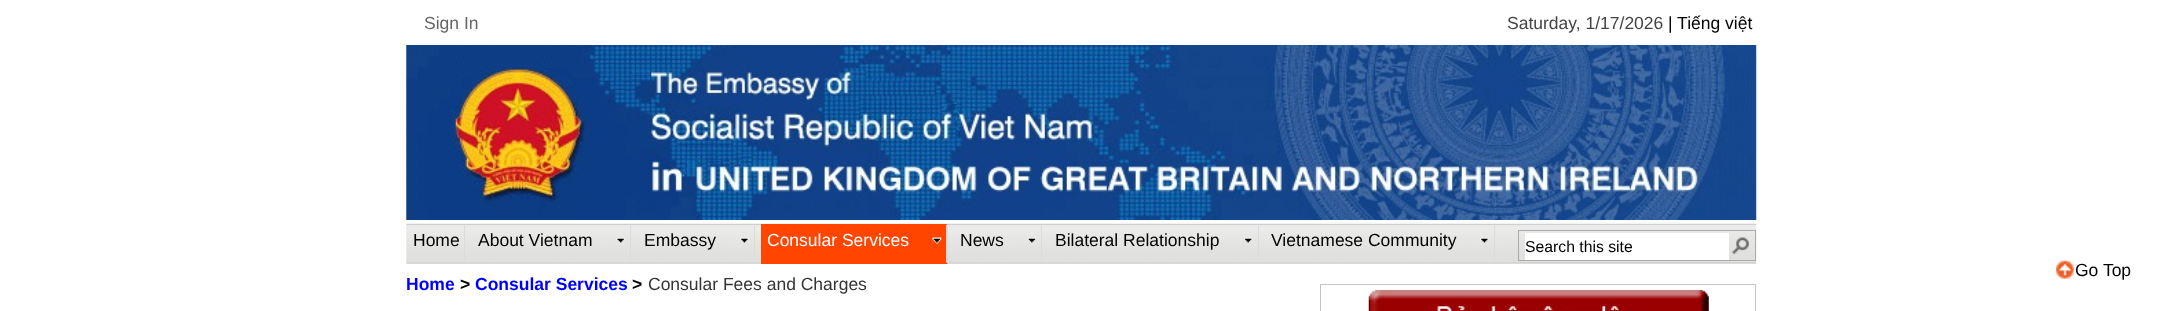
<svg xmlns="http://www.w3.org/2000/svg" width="2162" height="311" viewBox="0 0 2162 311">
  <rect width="100%" height="100%" fill="rgb(255,255,255)"/>
  <text x="424" y="29" font-family="Liberation Sans" font-size="17.5" fill="rgb(102,102,102)">Sign In</text>
  <text x="1507" y="29" font-family="Liberation Sans" font-size="17.5" fill="rgb(68,68,68)">Saturday, 1/17/2026</text>
  <text x="1668" y="29" font-family="Liberation Sans" font-size="17.5" fill="rgb(0,0,0)">| Tiếng việt</text>
  <image x="406" y="45" width="1351" height="175" href="pic1.png"/>
  <image x="406" y="223" width="1351" height="41" href="pic2.png"/>
  <path d="M465 224V264L464 262V225Z" fill="rgb(220,220,220)"/>
  <text x="413" y="246" font-family="Liberation Sans" font-size="17.5" fill="rgb(0,0,0)">Home</text>
  <path d="M631 224V264L630 262V225Z" fill="rgb(220,220,220)"/>
  <text x="478" y="246" font-family="Liberation Sans" font-size="17.5" fill="rgb(0,0,0)">About Vietnam</text>
  <image x="616" y="237" width="9" height="7" href="pic3.png"/>
  <path d="M755 224V264L754 262V225Z" fill="rgb(220,220,220)"/>
  <text x="644" y="246" font-family="Liberation Sans" font-size="17.5" fill="rgb(0,0,0)">Embassy</text>
  <image x="740" y="237" width="9" height="7" href="pic4.png"/>
  <rect x="761" y="224" width="187" height="40" fill="rgb(255,69,0)"/>
  <path d="M948 224V264L946 262V225Z" fill="rgb(220,220,220)"/>
  <text x="767" y="246" font-family="Liberation Sans" font-size="17.5" fill="rgb(255,255,255)">Consular Services</text>
  <image x="932" y="237" width="10" height="7" href="pic5.png"/>
  <path d="M1042 224V264L1041 262V225Z" fill="rgb(220,220,220)"/>
  <text x="960" y="246" font-family="Liberation Sans" font-size="17.5" fill="rgb(0,0,0)">News</text>
  <image x="1027" y="237" width="9" height="7" href="pic6.png"/>
  <path d="M1259 224V264L1258 262V225Z" fill="rgb(220,220,220)"/>
  <text x="1055" y="246" font-family="Liberation Sans" font-size="17.5" fill="rgb(0,0,0)">Bilateral Relationship</text>
  <image x="1244" y="237" width="9" height="7" href="pic7.png"/>
  <path d="M1495 224V264L1494 262V225Z" fill="rgb(220,220,220)"/>
  <text x="1271" y="246" font-family="Liberation Sans" font-size="17.5" fill="rgb(0,0,0)">Vietnamese Community</text>
  <image x="1480" y="237" width="9" height="7" href="pic8.png"/>
  <rect x="1518.5" y="230.5" width="237" height="30" fill="none" stroke="rgb(171,171,171)"/>
  <rect x="1525" y="233" width="204" height="27" fill="rgb(255,255,255)"/>
  <text x="1525" y="252" font-family="Liberation Sans" font-size="15.75" fill="rgb(0,0,0)">Search this site</text>
  <image x="1732" y="237" width="17" height="18" href="pic9.png"/>
  <text x="406" y="290" font-family="Liberation Sans" font-size="17.5" font-weight="bold" fill="rgb(0,0,255)">Home</text>
  <text x="460" y="290" font-family="Liberation Sans" font-size="17.5" font-weight="bold" fill="rgb(0,0,0)">&gt;</text>
  <text x="475" y="290" font-family="Liberation Sans" font-size="17.5" font-weight="bold" fill="rgb(0,0,255)">Consular Services</text>
  <text x="632" y="290" font-family="Liberation Sans" font-size="17.5" font-weight="bold" fill="rgb(0,0,0)">&gt;</text>
  <text x="648" y="290" font-family="Liberation Sans" font-size="17.5" fill="rgb(52,52,53)">Consular Fees and Charges</text>
  <rect x="1320.5" y="284.5" width="435" height="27" fill="none" stroke="rgb(198,198,198)"/>
  <image x="1367" y="289" width="342" height="22" href="pic10.png"/>
  <image x="2056" y="260" width="18" height="20" href="pic11.png"/>
  <text x="2075" y="276" font-family="Liberation Sans" font-size="17.5" fill="rgb(0,0,0)">Go Top</text>
</svg>
